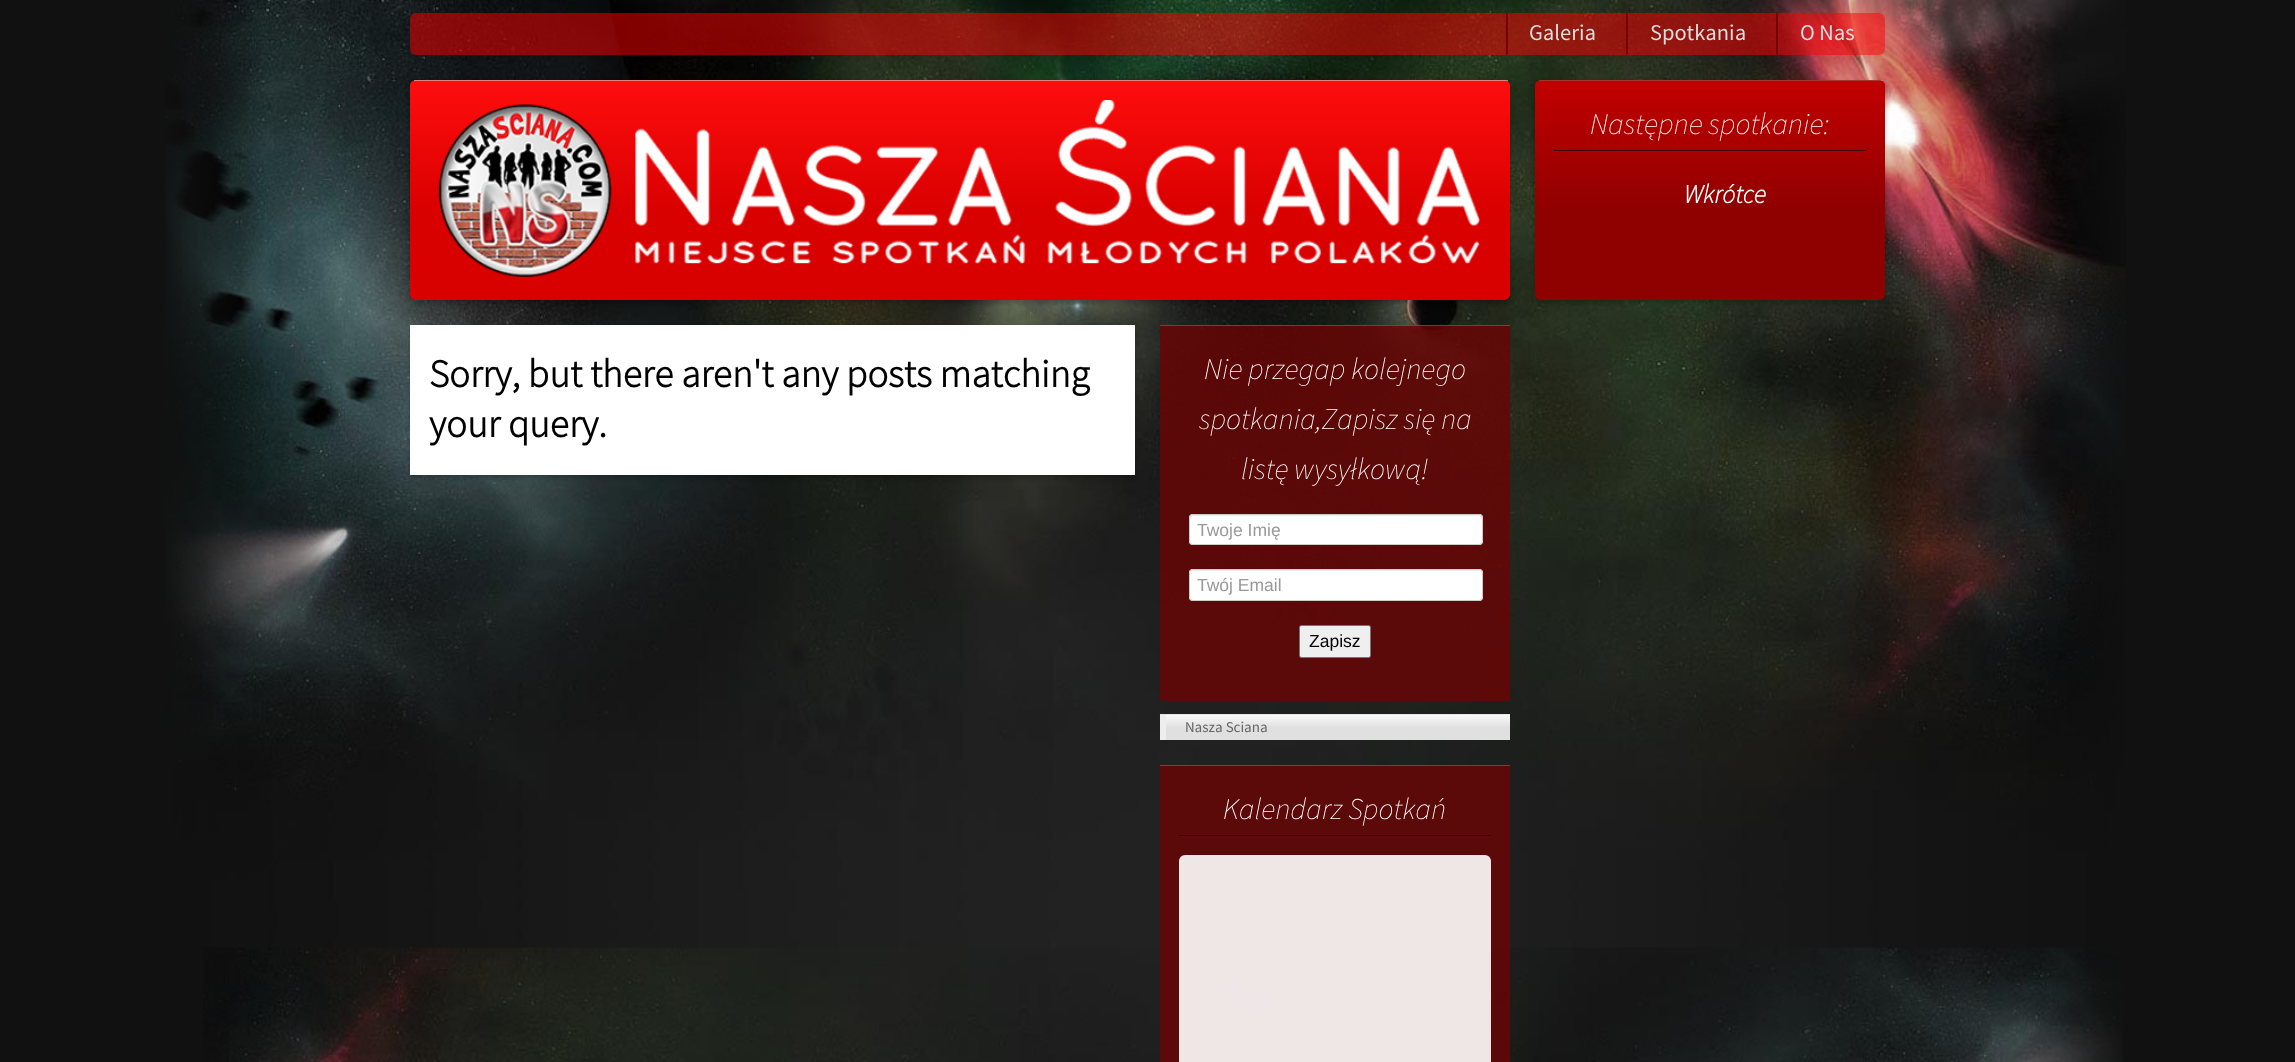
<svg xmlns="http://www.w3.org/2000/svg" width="2295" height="1062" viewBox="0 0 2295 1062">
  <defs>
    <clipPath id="clip1"><rect x="410" y="80" width="1100" height="220" rx="6"/></clipPath>
    <linearGradient id="g1" gradientUnits="userSpaceOnUse" x1="960" y1="81" x2="960" y2="300"><stop offset="0" stop-color="rgb(255,13,13)"/><stop offset="0.6" stop-color="rgb(217,0,0)"/><stop offset="1" stop-color="rgb(217,0,0)"/></linearGradient>
    <clipPath id="clip2"><rect x="1535" y="80" width="350" height="220" rx="6"/></clipPath>
    <linearGradient id="g2" gradientUnits="userSpaceOnUse" x1="1710" y1="81" x2="1710" y2="300"><stop offset="0" stop-color="rgb(194,0,0)"/><stop offset="0.6" stop-color="rgb(143,0,0)"/><stop offset="1" stop-color="rgb(143,0,0)"/></linearGradient>
    <linearGradient id="g3" gradientUnits="userSpaceOnUse" x1="1335" y1="715" x2="1335" y2="740"><stop offset="0" stop-color="rgb(250,250,250)"/><stop offset="0.5" stop-color="rgb(224,224,224)"/><stop offset="1" stop-color="rgb(224,224,224)"/></linearGradient>
  </defs>
  <rect width="100%" height="100%" fill="rgb(17,17,17)"/>
  <image x="203" y="947" width="1920" height="115" href="pic1.png"/>
  <image x="165" y="0" width="1961" height="948" href="pic2.png"/>
  <rect x="410" y="13" width="1475" height="42" rx="6" fill="rgba(255,0,0,0.5)"/>
  <path d="M1506 55V12L1508 14V54Z" fill="rgb(119,0,0)"/>
  <text x="1529" y="40" font-family="Source Sans Pro" font-size="22.5" fill="rgb(221,221,221)">Galeria</text>
  <path d="M1626 55V12L1628 14V54Z" fill="rgb(119,0,0)"/>
  <text x="1650" y="40" font-family="Source Sans Pro" font-size="22.5" fill="rgb(221,221,221)">Spotkania</text>
  <path d="M1776 55V12L1778 14V54Z" fill="rgb(119,0,0)"/>
  <text x="1800" y="40" font-family="Source Sans Pro" font-size="22.5" fill="rgb(221,221,221)">O Nas</text>
  <rect x="410" y="80" width="1100" height="220" rx="6" fill="rgba(0,0,0,0.2)" filter="blur(0.5px)"/>
  <rect x="410" y="83" width="1100" height="220" rx="6" fill="rgba(0,0,0,0.2)" filter="blur(2px)"/>
  <rect x="410" y="80" width="1100" height="220" rx="6" fill="rgb(217,0,0)"/>
  <g clip-path="url(#clip1)">
    <path d="M410 81H1510V294C1510 297.5 1507.5 300 1504 300H416C412.5 300 410 297.5 410 294Z" fill="url(#g1)"/>
  </g>
  <rect x="414" y="80" width="1094" height="1" fill="rgba(255,255,255,0.5)"/>
  <image x="438" y="100" width="1042" height="177" href="pic3.png"/>
  <rect x="1535" y="80" width="350" height="220" rx="6" fill="rgba(0,0,0,0.2)" filter="blur(0.5px)"/>
  <rect x="1535" y="83" width="350" height="220" rx="6" fill="rgba(0,0,0,0.2)" filter="blur(2px)"/>
  <rect x="1535" y="80" width="350" height="220" rx="6" fill="rgb(143,0,0)"/>
  <g clip-path="url(#clip2)">
    <path d="M1535 81H1885V294C1885 297.5 1882.5 300 1879 300H1541C1537.5 300 1535 297.5 1535 294Z" fill="url(#g2)"/>
  </g>
  <rect x="1539" y="80" width="344" height="1" fill="rgba(255,255,255,0.2)"/>
  <rect x="1554" y="150" width="312" height="1" fill="rgb(58,2,2)"/>
  <text x="1590" y="134" font-family="Source Sans Pro" font-size="30" font-weight="200" font-style="italic" fill="rgb(255,255,255)">Następne spotkanie:</text>
  <text x="1684" y="203" font-family="Source Sans Pro" font-size="26" font-weight="bold" font-style="italic" fill="rgb(255,255,255)">Wkrótce</text>
  <rect x="410" y="328" width="725" height="150" fill="rgba(0,0,0,0.2)" filter="blur(2px)"/>
  <rect x="410" y="325" width="725" height="150" fill="rgb(255,255,255)"/>
  <g font-family="Source Sans Pro" font-size="39" font-weight="bold" fill="rgb(0,0,0)">
    <text>
      <tspan x="429" y="387">Sorry, but there aren't any posts matching</tspan>
      <tspan x="429" y="437">your query.</tspan>
    </text>
  </g>
  <rect x="1160" y="325" width="350" height="376" fill="rgba(108,4,4,0.8)"/>
  <rect x="1160" y="325" width="350" height="1" fill="rgba(255,255,255,0.2)"/>
  <g font-family="Source Sans Pro" font-size="30" font-weight="200" font-style="italic" fill="rgb(255,255,255)">
    <text x="1204" y="379">Nie przegap kolejnego</text>
    <text x="1199" y="429">spotkania,Zapisz się na</text>
    <text x="1241" y="479">listę wysyłkową!</text>
  </g>
  <rect x="1189" y="514" width="294" height="31" rx="4" fill="rgb(255,255,255)"/>
  <path d="M1192 516H1479C1480 516 1481 517 1481 519C1481 517 1481 515 1478 515H1192C1190 515 1190 517 1190 519C1190 517 1191 516 1192 516Z" fill="rgb(236,236,236)"/>
  <rect x="1189.5" y="514.5" width="293" height="30" rx="3.5" fill="none" stroke="rgb(204,204,204)"/>
  <text x="1197" y="536" font-family="Liberation Sans" font-size="17.5" fill="rgb(153,153,153)">Twoje Imię</text>
  <rect x="1189" y="569" width="294" height="32" rx="4" fill="rgb(255,255,255)"/>
  <path d="M1192 571H1479C1480 571 1481 572 1481 574C1481 572 1481 570 1478 570H1192C1190 570 1190 572 1190 574C1190 572 1191 571 1192 571Z" fill="rgb(236,236,236)"/>
  <rect x="1189.5" y="569.5" width="293" height="31" rx="3.5" fill="none" stroke="rgb(204,204,204)"/>
  <text x="1197" y="591" font-family="Liberation Sans" font-size="17.5" fill="rgb(153,153,153)">Twój Email</text>
  <rect x="1299.5" y="625.5" width="71" height="32" rx="2" fill="rgb(239,239,239)" stroke="rgb(118,118,118)"/>
  <text x="1309" y="647" font-family="Liberation Sans" font-size="17.5" fill="rgb(0,0,0)">Zapisz</text>
  <rect x="1166" y="715" width="344" height="25" fill="url(#g3)"/>
  <rect x="1160" y="714" width="350" height="1" fill="rgb(230,230,230)"/>
  <rect x="1160" y="715" width="6" height="25" fill="rgb(238,238,238)"/>
  <text x="1185" y="732" font-family="Source Sans Pro" font-size="15" fill="rgb(102,102,102)">Nasza Sciana</text>
  <rect x="1160" y="766" width="350" height="296" fill="rgba(108,4,4,0.8)"/>
  <rect x="1160" y="765" width="350" height="1" fill="rgb(125,59,59)"/>
  <rect x="1179" y="835" width="312" height="1" fill="rgb(58,2,2)"/>
  <text x="1223" y="819" font-family="Source Sans Pro" font-size="30" font-weight="200" font-style="italic" fill="rgb(255,255,255)">Kalendarz Spotkań</text>
  <rect x="1179" y="855" width="312" height="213" rx="6" fill="rgba(255,255,255,0.9)"/>
</svg>
